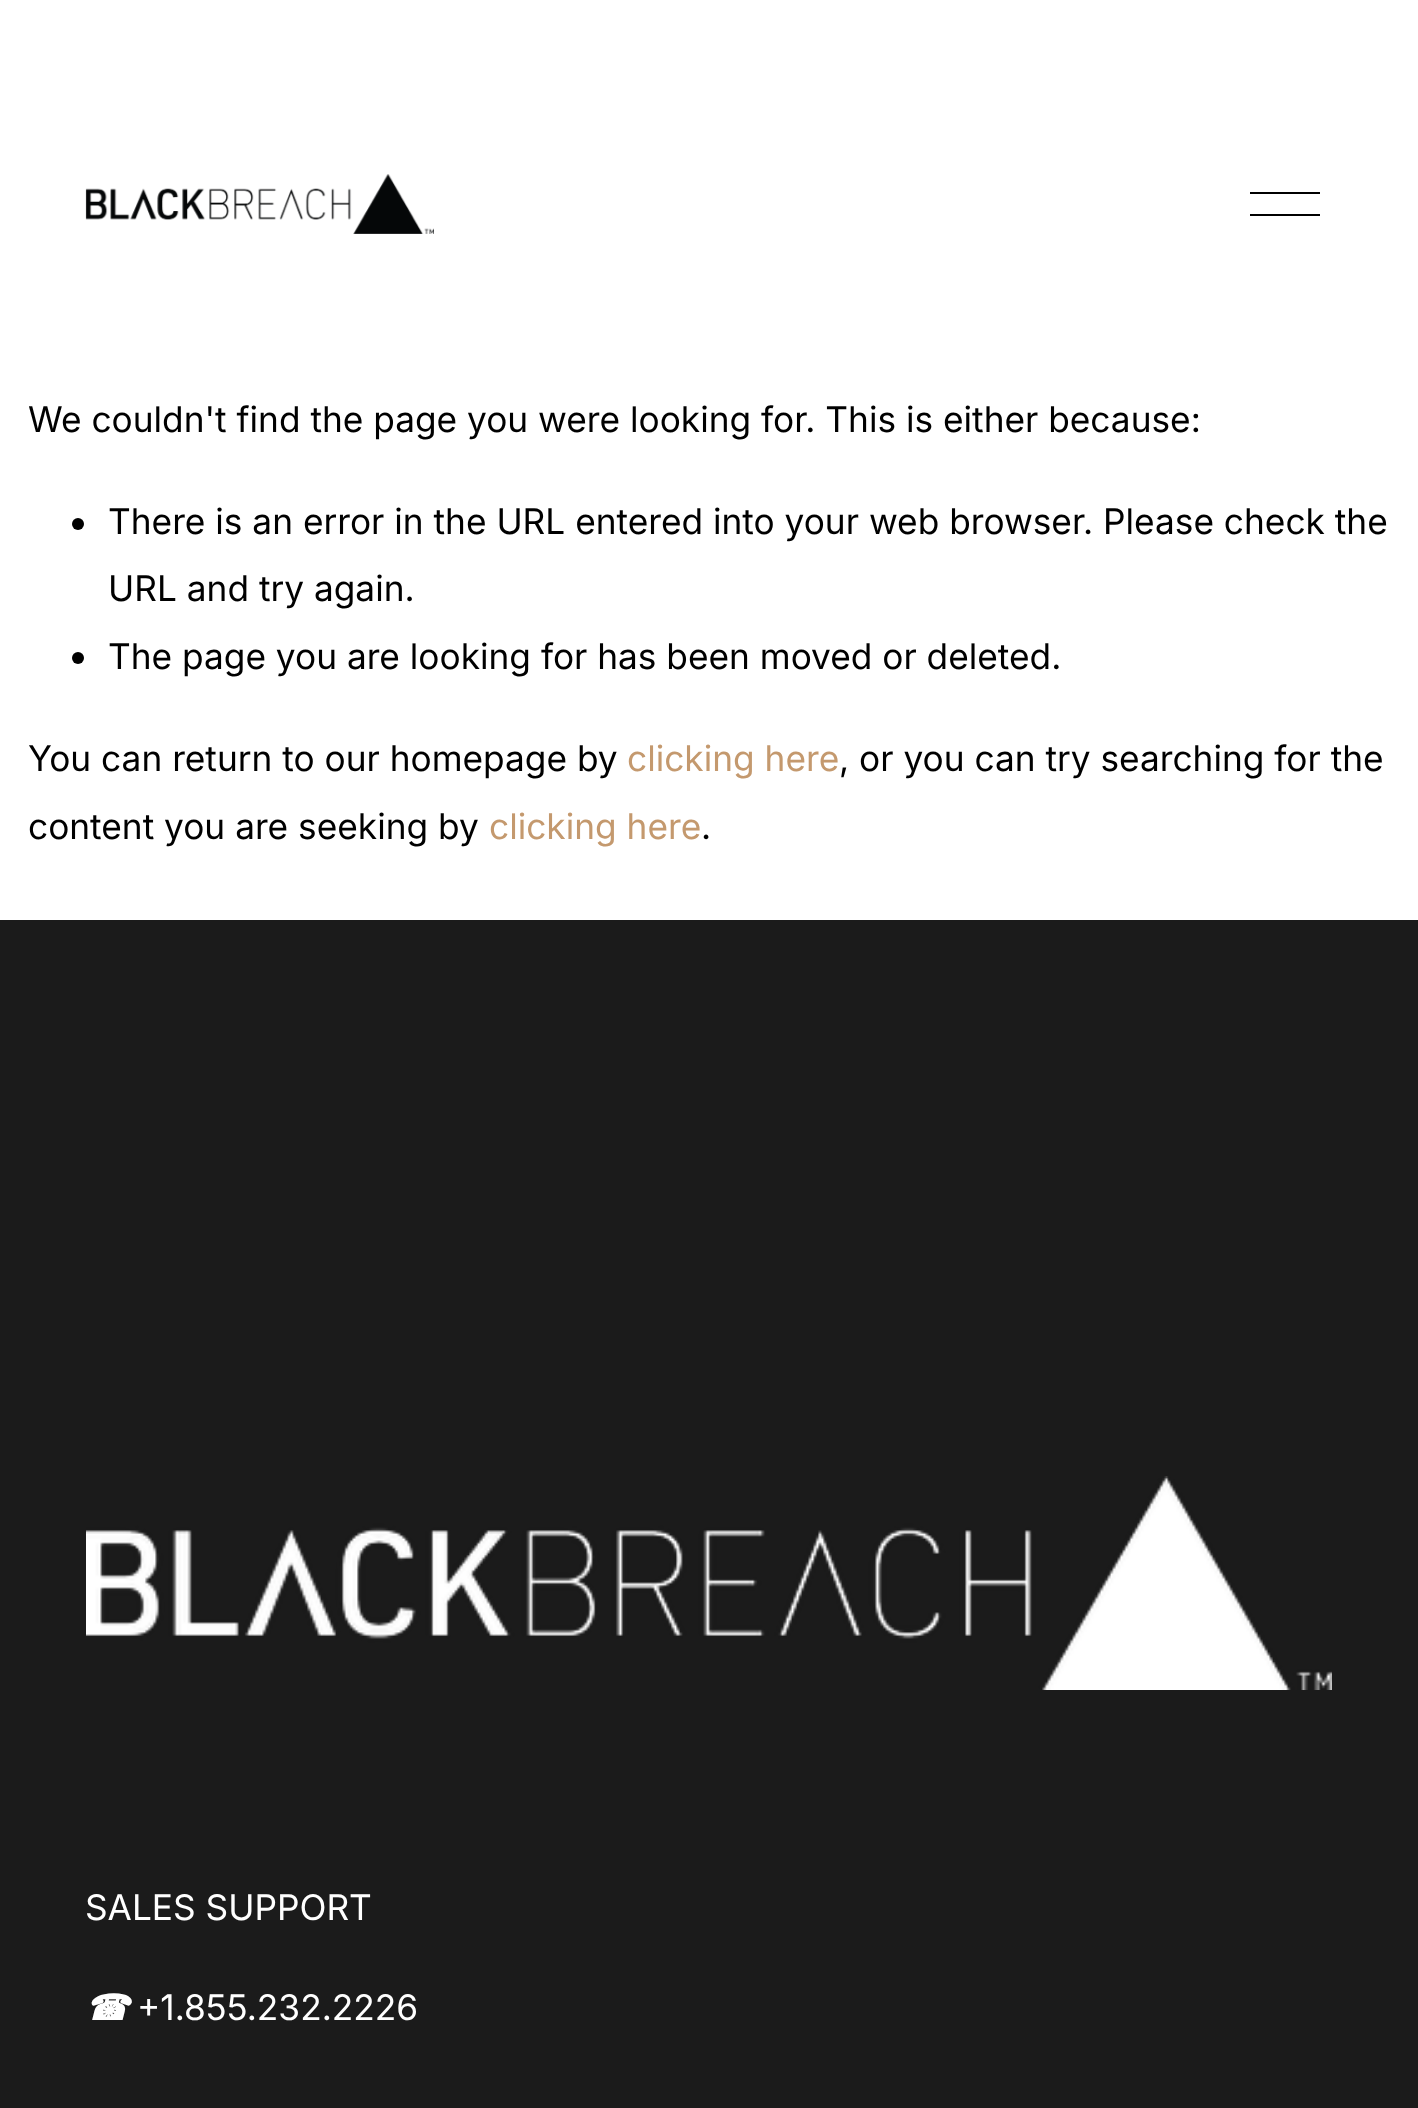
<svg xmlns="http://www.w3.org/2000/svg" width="1418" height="2108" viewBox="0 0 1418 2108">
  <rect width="100%" height="100%" fill="rgb(255,255,255)"/>
  <image x="85" y="174" width="349" height="60" href="pic1.png"/>
  <rect x="1250" y="192" width="70" height="2" fill="rgb(0,0,0)"/>
  <rect x="1250" y="214" width="70" height="2" fill="rgb(0,0,0)"/>
  <text x="28" y="432" font-family="Inter" font-size="35.25" fill="rgb(0,0,0)">We couldn't find the page you were looking for. This is either because:</text>
  <circle cx="78" cy="524" r="6" fill="rgb(0,0,0)"/>
  <g font-family="Inter" font-size="35.25" fill="rgb(0,0,0)">
    <text>
      <tspan x="108" y="534">There is an error in the URL entered into your web browser. Please check the</tspan>
      <tspan x="108" y="601">URL and try again.</tspan>
    </text>
  </g>
  <circle cx="78" cy="658" r="6" fill="rgb(0,0,0)"/>
  <g font-family="Inter" font-size="35.25" fill="rgb(0,0,0)">
    <text x="108" y="669">The page you are looking for has been moved or deleted.</text>
    <text x="28" y="771">You can return to our homepage by</text>
  </g>
  <text x="627" y="771" font-family="Inter" font-size="35.25" fill="rgb(196,153,110)">clicking here</text>
  <g font-family="Inter" font-size="35.25" fill="rgb(0,0,0)">
    <text x="839" y="771">, or you can try searching for the</text>
    <text x="28" y="839">content you are seeking by</text>
  </g>
  <text x="489" y="839" font-family="Inter" font-size="35.25" fill="rgb(196,153,110)">clicking here</text>
  <text x="701" y="839" font-family="Inter" font-size="35.25" fill="rgb(0,0,0)">.</text>
  <rect x="0" y="920" width="1418" height="1188" fill="rgb(27,27,27)"/>
  <image x="86" y="1476" width="1246" height="214" href="pic2.png"/>
  <text x="85" y="1920" font-family="Inter" font-size="35.25" fill="rgb(255,255,255)">SALES SUPPORT</text>
  <text x="85" y="2020" font-family="DejaVu Sans" font-size="35.25" font-weight="bold" font-style="italic" fill="rgb(255,255,255)">☎</text>
  <text x="137" y="2020" font-family="Inter" font-size="35.25" fill="rgb(255,255,255)">+1.855.232.2226</text>
</svg>
